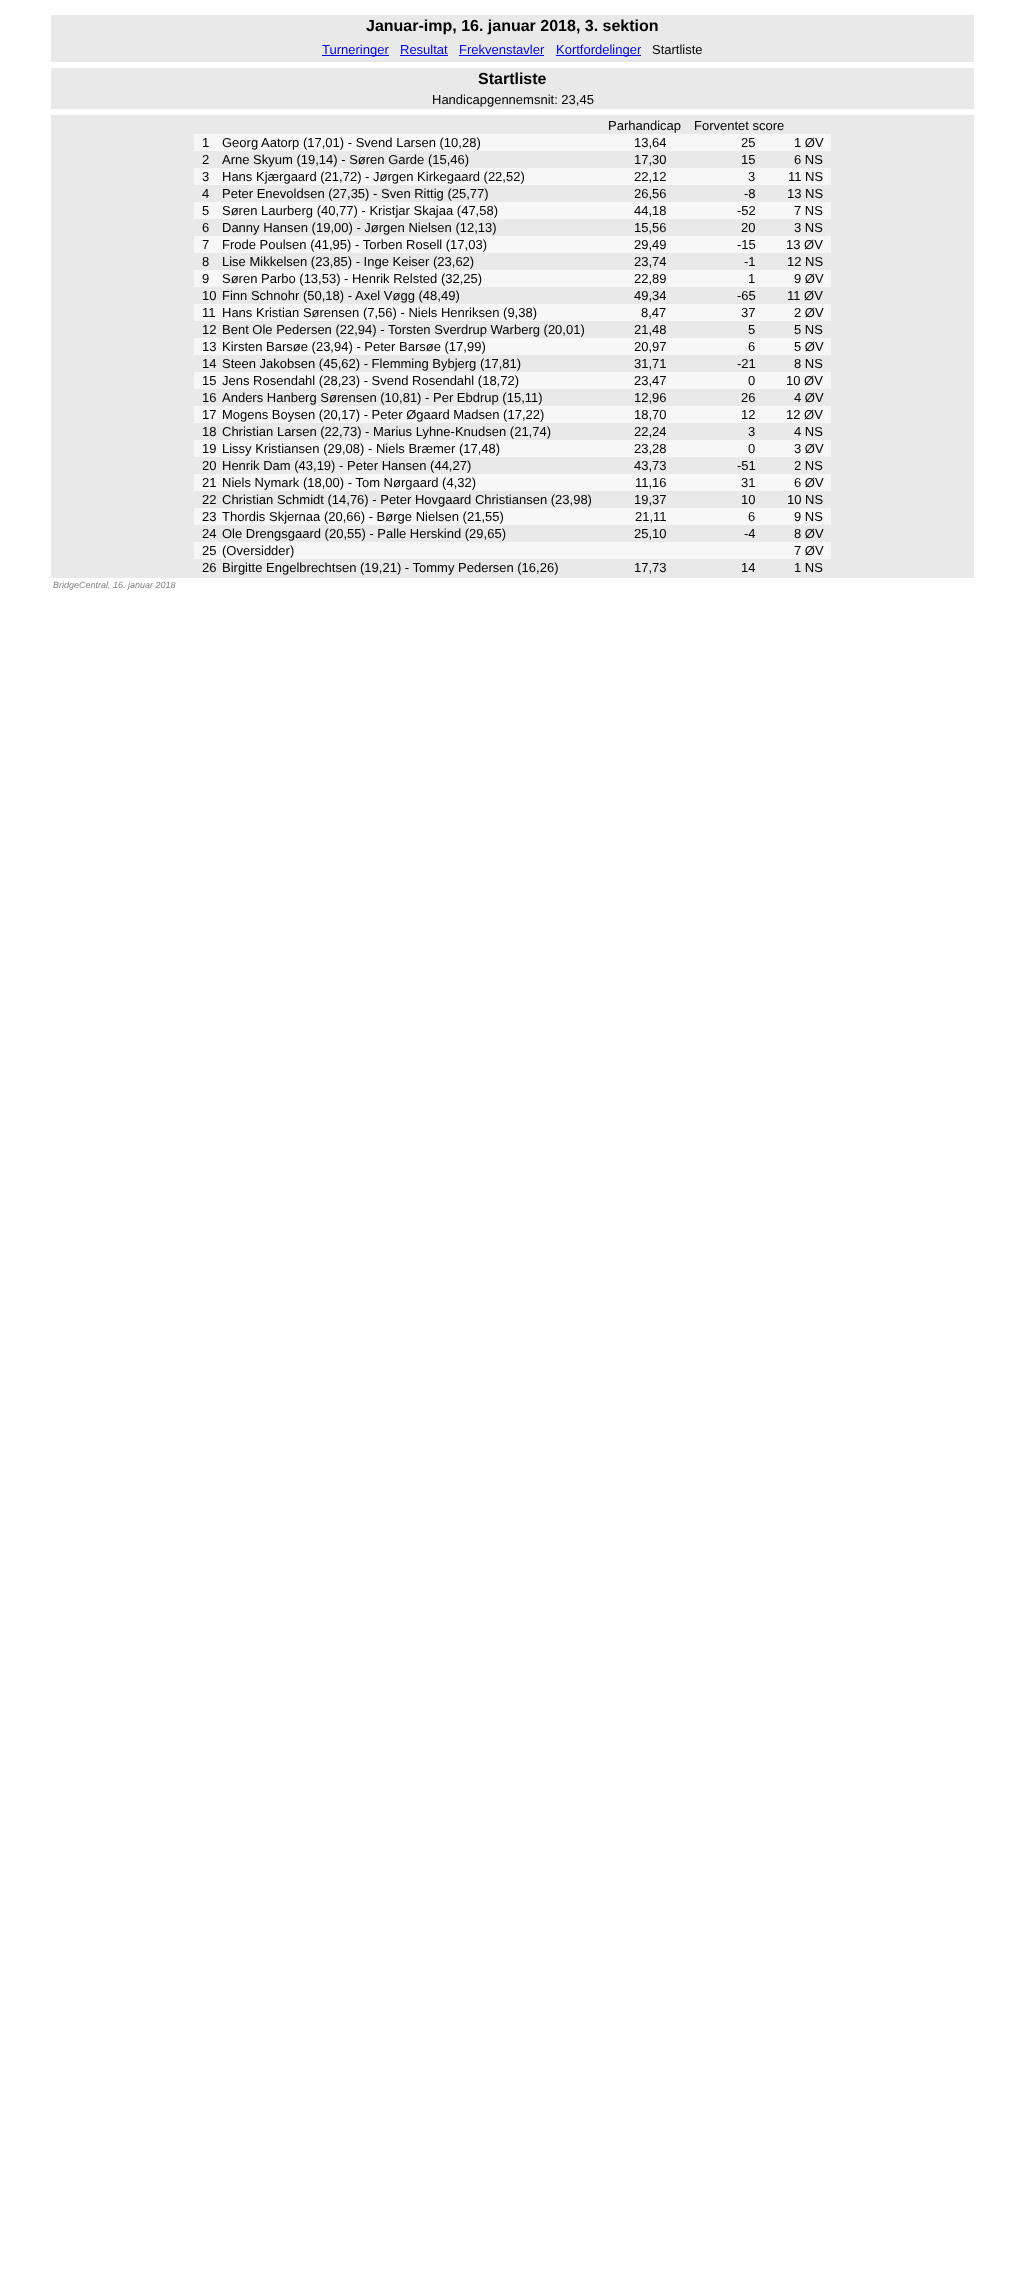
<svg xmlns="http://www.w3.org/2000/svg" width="1025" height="2285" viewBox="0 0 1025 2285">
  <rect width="100%" height="100%" fill="rgb(255,255,255)"/>
  <rect x="51" y="15" width="923" height="47" fill="rgb(233,233,233)"/>
  <text x="366" y="31" font-family="Liberation Sans" font-size="16" font-weight="bold" fill="rgb(0,0,0)">Januar-imp, 16. januar 2018, 3. sektion</text>
  <rect x="322" y="55" width="67" height="1" fill="rgb(0,0,238)"/>
  <g font-family="Liberation Sans" font-size="13" fill="rgb(0,0,238)">
    <text x="322" y="54">Turneringer</text>
    <text x="400" y="54">Resultat</text>
  </g>
  <rect x="400" y="55" width="48" height="1" fill="rgb(0,0,238)"/>
  <text x="459" y="54" font-family="Liberation Sans" font-size="13" fill="rgb(0,0,238)">Frekvenstavler</text>
  <rect x="459" y="55" width="85" height="1" fill="rgb(0,0,238)"/>
  <rect x="556" y="55" width="85" height="1" fill="rgb(0,0,238)"/>
  <text x="556" y="54" font-family="Liberation Sans" font-size="13" fill="rgb(0,0,238)">Kortfordelinger</text>
  <text x="652" y="54" font-family="Liberation Sans" font-size="13" fill="rgb(0,0,0)">Startliste</text>
  <rect x="51" y="68" width="923" height="510" fill="rgb(233,233,233)"/>
  <text x="478" y="84" font-family="Liberation Sans" font-size="16" font-weight="bold" fill="rgb(0,0,0)">Startliste</text>
  <text x="432" y="104" font-family="Liberation Sans" font-size="13" fill="rgb(0,0,0)">Handicapgennemsnit: 23,45</text>
  <rect x="51" y="109" width="923" height="6" fill="rgb(255,255,255)"/>
  <g font-family="Liberation Sans" font-size="13" fill="rgb(0,0,0)">
    <text x="608" y="130">Parhandicap</text>
    <text x="694" y="130">Forventet score</text>
  </g>
  <rect x="194" y="134" width="637" height="17" fill="rgb(247,247,247)"/>
  <g font-family="Liberation Sans" font-size="13" fill="rgb(0,0,0)">
    <text x="202" y="147">1</text>
    <text x="222" y="147">Georg Aatorp (17,01) - Svend Larsen (10,28)</text>
    <text x="634" y="147">13,64</text>
    <text x="741" y="147">25</text>
    <text x="794" y="147">1 ØV</text>
    <text x="202" y="164">2</text>
    <text x="222" y="164">Arne Skyum (19,14) - Søren Garde (15,46)</text>
    <text x="634" y="164">17,30</text>
    <text x="741" y="164">15</text>
    <text x="794" y="164">6 NS</text>
  </g>
  <rect x="194" y="168" width="637" height="17" fill="rgb(247,247,247)"/>
  <g font-family="Liberation Sans" font-size="13" fill="rgb(0,0,0)">
    <text x="202" y="181">3</text>
    <text x="222" y="181">Hans Kjærgaard (21,72) - Jørgen Kirkegaard (22,52)</text>
    <text x="634" y="181">22,12</text>
    <text x="748" y="181">3</text>
    <text x="788" y="181">11 NS</text>
    <text x="202" y="198">4</text>
    <text x="222" y="198">Peter Enevoldsen (27,35) - Sven Rittig (25,77)</text>
    <text x="634" y="198">26,56</text>
    <text x="744" y="198">-8</text>
    <text x="787" y="198">13 NS</text>
  </g>
  <rect x="194" y="202" width="637" height="17" fill="rgb(247,247,247)"/>
  <g font-family="Liberation Sans" font-size="13" fill="rgb(0,0,0)">
    <text x="202" y="215">5</text>
    <text x="222" y="215">Søren Laurberg (40,77) - Kristjar Skajaa (47,58)</text>
    <text x="634" y="215">44,18</text>
    <text x="737" y="215">-52</text>
    <text x="794" y="215">7 NS</text>
    <text x="202" y="232">6</text>
    <text x="222" y="232">Danny Hansen (19,00) - Jørgen Nielsen (12,13)</text>
    <text x="634" y="232">15,56</text>
    <text x="741" y="232">20</text>
    <text x="794" y="232">3 NS</text>
  </g>
  <rect x="194" y="236" width="637" height="17" fill="rgb(247,247,247)"/>
  <g font-family="Liberation Sans" font-size="13" fill="rgb(0,0,0)">
    <text x="202" y="249">7</text>
    <text x="222" y="249">Frode Poulsen (41,95) - Torben Rosell (17,03)</text>
    <text x="634" y="249">29,49</text>
    <text x="737" y="249">-15</text>
    <text x="786" y="249">13 ØV</text>
    <text x="202" y="266">8</text>
    <text x="222" y="266">Lise Mikkelsen (23,85) - Inge Keiser (23,62)</text>
    <text x="634" y="266">23,74</text>
    <text x="744" y="266">-1</text>
    <text x="787" y="266">12 NS</text>
  </g>
  <rect x="194" y="270" width="637" height="17" fill="rgb(247,247,247)"/>
  <g font-family="Liberation Sans" font-size="13" fill="rgb(0,0,0)">
    <text x="202" y="283">9</text>
    <text x="222" y="283">Søren Parbo (13,53) - Henrik Relsted (32,25)</text>
    <text x="634" y="283">22,89</text>
    <text x="748" y="283">1</text>
    <text x="794" y="283">9 ØV</text>
    <text x="202" y="300">10</text>
    <text x="222" y="300">Finn Schnohr (50,18) - Axel Vøgg (48,49)</text>
    <text x="634" y="300">49,34</text>
    <text x="737" y="300">-65</text>
    <text x="787" y="300">11 ØV</text>
  </g>
  <rect x="194" y="304" width="637" height="17" fill="rgb(247,247,247)"/>
  <g font-family="Liberation Sans" font-size="13" fill="rgb(0,0,0)">
    <text x="202" y="317">11</text>
    <text x="222" y="317">Hans Kristian Sørensen (7,56) - Niels Henriksen (9,38)</text>
    <text x="641" y="317">8,47</text>
    <text x="741" y="317">37</text>
    <text x="794" y="317">2 ØV</text>
    <text x="202" y="334">12</text>
    <text x="222" y="334">Bent Ole Pedersen (22,94) - Torsten Sverdrup Warberg (20,01)</text>
    <text x="634" y="334">21,48</text>
    <text x="748" y="334">5</text>
    <text x="794" y="334">5 NS</text>
  </g>
  <rect x="194" y="338" width="637" height="17" fill="rgb(247,247,247)"/>
  <g font-family="Liberation Sans" font-size="13" fill="rgb(0,0,0)">
    <text x="202" y="351">13</text>
    <text x="222" y="351">Kirsten Barsøe (23,94) - Peter Barsøe (17,99)</text>
    <text x="634" y="351">20,97</text>
    <text x="748" y="351">6</text>
    <text x="794" y="351">5 ØV</text>
    <text x="202" y="368">14</text>
    <text x="222" y="368">Steen Jakobsen (45,62) - Flemming Bybjerg (17,81)</text>
    <text x="634" y="368">31,71</text>
    <text x="737" y="368">-21</text>
    <text x="794" y="368">8 NS</text>
  </g>
  <rect x="194" y="372" width="637" height="17" fill="rgb(247,247,247)"/>
  <g font-family="Liberation Sans" font-size="13" fill="rgb(0,0,0)">
    <text x="202" y="385">15</text>
    <text x="222" y="385">Jens Rosendahl (28,23) - Svend Rosendahl (18,72)</text>
    <text x="634" y="385">23,47</text>
    <text x="748" y="385">0</text>
    <text x="786" y="385">10 ØV</text>
    <text x="202" y="402">16</text>
    <text x="222" y="402">Anders Hanberg Sørensen (10,81) - Per Ebdrup (15,11)</text>
    <text x="634" y="402">12,96</text>
    <text x="741" y="402">26</text>
    <text x="794" y="402">4 ØV</text>
  </g>
  <rect x="194" y="406" width="637" height="17" fill="rgb(247,247,247)"/>
  <g font-family="Liberation Sans" font-size="13" fill="rgb(0,0,0)">
    <text x="202" y="419">17</text>
    <text x="222" y="419">Mogens Boysen (20,17) - Peter Øgaard Madsen (17,22)</text>
    <text x="634" y="419">18,70</text>
    <text x="741" y="419">12</text>
    <text x="786" y="419">12 ØV</text>
    <text x="202" y="436">18</text>
    <text x="222" y="436">Christian Larsen (22,73) - Marius Lyhne-Knudsen (21,74)</text>
    <text x="634" y="436">22,24</text>
    <text x="748" y="436">3</text>
    <text x="794" y="436">4 NS</text>
  </g>
  <rect x="194" y="440" width="637" height="17" fill="rgb(247,247,247)"/>
  <g font-family="Liberation Sans" font-size="13" fill="rgb(0,0,0)">
    <text x="202" y="453">19</text>
    <text x="222" y="453">Lissy Kristiansen (29,08) - Niels Bræmer (17,48)</text>
    <text x="634" y="453">23,28</text>
    <text x="748" y="453">0</text>
    <text x="794" y="453">3 ØV</text>
    <text x="202" y="470">20</text>
    <text x="222" y="470">Henrik Dam (43,19) - Peter Hansen (44,27)</text>
    <text x="634" y="470">43,73</text>
    <text x="737" y="470">-51</text>
    <text x="794" y="470">2 NS</text>
  </g>
  <rect x="194" y="474" width="637" height="17" fill="rgb(247,247,247)"/>
  <g font-family="Liberation Sans" font-size="13" fill="rgb(0,0,0)">
    <text x="202" y="487">21</text>
    <text x="222" y="487">Niels Nymark (18,00) - Tom Nørgaard (4,32)</text>
    <text x="635" y="487">11,16</text>
    <text x="741" y="487">31</text>
    <text x="794" y="487">6 ØV</text>
    <text x="202" y="504">22</text>
    <text x="222" y="504">Christian Schmidt (14,76) - Peter Hovgaard Christiansen (23,98)</text>
    <text x="634" y="504">19,37</text>
    <text x="741" y="504">10</text>
    <text x="787" y="504">10 NS</text>
  </g>
  <rect x="194" y="508" width="637" height="17" fill="rgb(247,247,247)"/>
  <g font-family="Liberation Sans" font-size="13" fill="rgb(0,0,0)">
    <text x="202" y="521">23</text>
    <text x="222" y="521">Thordis Skjernaa (20,66) - Børge Nielsen (21,55)</text>
    <text x="635" y="521">21,11</text>
    <text x="748" y="521">6</text>
    <text x="794" y="521">9 NS</text>
    <text x="202" y="538">24</text>
    <text x="222" y="538">Ole Drengsgaard (20,55) - Palle Herskind (29,65)</text>
    <text x="634" y="538">25,10</text>
    <text x="744" y="538">-4</text>
    <text x="794" y="538">8 ØV</text>
  </g>
  <rect x="194" y="542" width="637" height="17" fill="rgb(247,247,247)"/>
  <g font-family="Liberation Sans" font-size="13" fill="rgb(0,0,0)">
    <text x="202" y="555">25</text>
    <text x="222" y="555">(Oversidder)</text>
    <text x="794" y="555">7 ØV</text>
    <text x="202" y="572">26</text>
    <text x="222" y="572">Birgitte Engelbrechtsen (19,21) - Tommy Pedersen (16,26)</text>
    <text x="634" y="572">17,73</text>
    <text x="741" y="572">14</text>
    <text x="794" y="572">1 NS</text>
  </g>
  <text x="53" y="588" font-family="Liberation Sans" font-size="9" font-style="italic" fill="rgb(128,128,128)">BridgeCentral, 16. januar 2018</text>
</svg>
